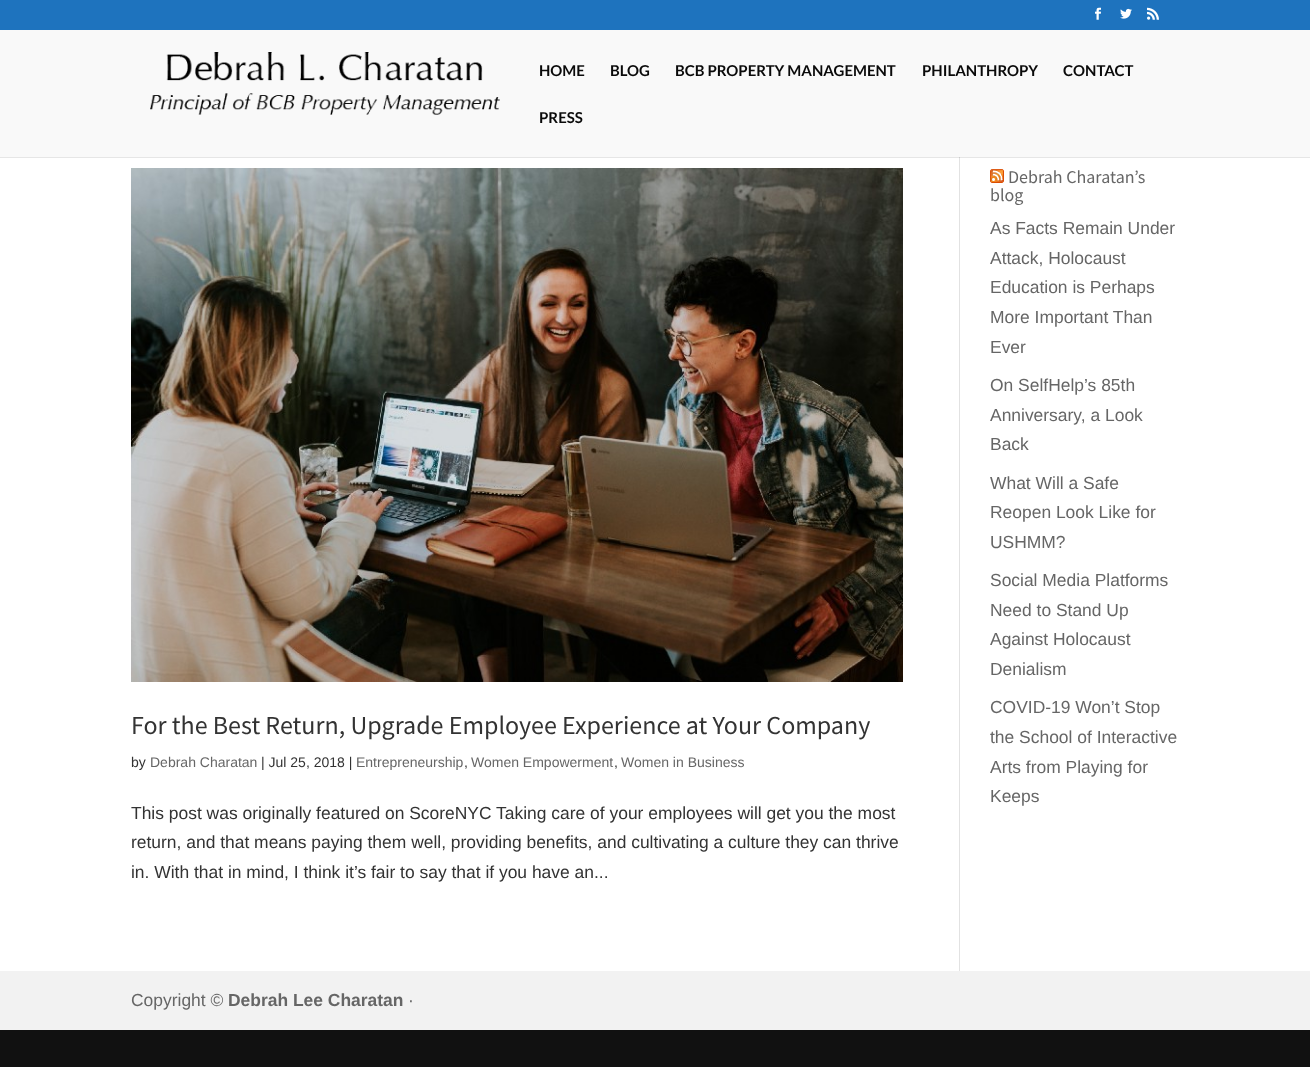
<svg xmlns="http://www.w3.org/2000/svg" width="1310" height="1067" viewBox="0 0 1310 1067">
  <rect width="100%" height="100%" fill="rgb(17,17,17)"/>
  <rect x="0" y="0" width="1310" height="30" fill="rgb(30,115,190)"/>
  <image x="1095" y="7" width="6" height="13" href="pic1.png"/>
  <image x="1120" y="8" width="12" height="11" href="pic2.png"/>
  <image x="1147" y="7" width="12" height="13" href="pic3.png"/>
  <rect x="0" y="30" width="1310" height="127" fill="rgb(249,249,249)"/>
  <image x="150" y="52" width="350" height="63" href="pic4.png"/>
  <g font-family="Lato" font-size="15" font-weight="bold" fill="rgb(10,10,10)">
    <text x="539" y="76">HOME</text>
    <text x="610" y="76">BLOG</text>
    <text x="675" y="76">BCB PROPERTY MANAGEMENT</text>
    <text x="922" y="76">PHILANTHROPY</text>
    <text x="1063" y="76">CONTACT</text>
    <text x="539" y="123">PRESS</text>
  </g>
  <rect x="0" y="158" width="1310" height="813" fill="rgb(255,255,255)"/>
  <rect x="0" y="157" width="1310" height="1" fill="rgb(230,230,230)"/>
  <rect x="959" y="158" width="1" height="813" fill="rgb(226,226,226)"/>
  <rect x="959" y="157" width="1" height="1" fill="rgb(203,203,203)"/>
  <image x="131" y="168" width="772" height="514" href="pic5.png"/>
  <text x="131" y="734" font-family="Source Sans Pro" font-size="26" fill="rgb(51,51,51)">For the Best Return, Upgrade Employee Experience at Your Company</text>
  <text x="131" y="767" font-family="Liberation Sans" font-size="14" fill="rgb(51,51,51)">by</text>
  <text x="150" y="767" font-family="Liberation Sans" font-size="14" fill="rgb(102,102,102)">Debrah Charatan</text>
  <text x="261" y="767" font-family="Liberation Sans" font-size="14" fill="rgb(51,51,51)">| Jul 25, 2018 |</text>
  <text x="356" y="767" font-family="Liberation Sans" font-size="14" fill="rgb(102,102,102)">Entrepreneurship</text>
  <text x="464" y="767" font-family="Liberation Sans" font-size="14" fill="rgb(51,51,51)">,</text>
  <text x="471" y="767" font-family="Liberation Sans" font-size="14" fill="rgb(102,102,102)">Women Empowerment</text>
  <text x="614" y="767" font-family="Liberation Sans" font-size="14" fill="rgb(51,51,51)">,</text>
  <text x="621" y="767" font-family="Liberation Sans" font-size="14" fill="rgb(102,102,102)">Women in Business</text>
  <g font-family="Liberation Sans" font-size="17.45" fill="rgb(51,51,51)">
    <text>
      <tspan x="131" y="819">This post was originally featured on ScoreNYC Taking care of your employees will get you the most</tspan>
      <tspan x="131" y="848">return, and that means paying them well, providing benefits, and cultivating a culture they can thrive</tspan>
      <tspan x="131" y="878">in. With that in mind, I think it’s fair to say that if you have an...</tspan>
    </text>
  </g>
  <image x="990" y="169" width="14" height="14" href="pic6.png"/>
  <g font-family="Source Sans Pro" font-size="18" fill="rgb(102,102,102)">
    <text x="1008" y="183">Debrah Charatan’s</text>
    <text x="990" y="201">blog</text>
  </g>
  <g font-family="Liberation Sans" font-size="17.45" fill="rgb(102,102,102)">
    <text>
      <tspan x="990" y="234">As Facts Remain Under</tspan>
      <tspan x="990" y="264">Attack, Holocaust</tspan>
      <tspan x="990" y="293">Education is Perhaps</tspan>
      <tspan x="990" y="323">More Important Than</tspan>
      <tspan x="990" y="353">Ever</tspan>
    </text>
    <text>
      <tspan x="990" y="391">On SelfHelp’s 85th</tspan>
      <tspan x="990" y="421">Anniversary, a Look</tspan>
      <tspan x="990" y="450">Back</tspan>
    </text>
    <text>
      <tspan x="990" y="489">What Will a Safe</tspan>
      <tspan x="990" y="518">Reopen Look Like for</tspan>
      <tspan x="990" y="548">USHMM?</tspan>
    </text>
    <text>
      <tspan x="990" y="586">Social Media Platforms</tspan>
      <tspan x="990" y="616">Need to Stand Up</tspan>
      <tspan x="990" y="645">Against Holocaust</tspan>
      <tspan x="990" y="675">Denialism</tspan>
    </text>
    <text>
      <tspan x="990" y="713">COVID-19 Won’t Stop</tspan>
      <tspan x="990" y="743">the School of Interactive</tspan>
      <tspan x="990" y="773">Arts from Playing for</tspan>
      <tspan x="990" y="802">Keeps</tspan>
    </text>
  </g>
  <rect x="0" y="971" width="1310" height="59" fill="rgb(242,242,242)"/>
  <text x="131" y="1006" font-family="Liberation Sans" font-size="17.45" fill="rgb(102,102,102)">Copyright ©</text>
  <text x="228" y="1006" font-family="Liberation Sans" font-size="17.45" font-weight="bold" fill="rgb(102,102,102)">Debrah Lee Charatan</text>
  <text x="408" y="1006" font-family="Liberation Sans" font-size="17.45" fill="rgb(102,102,102)">·</text>
</svg>
